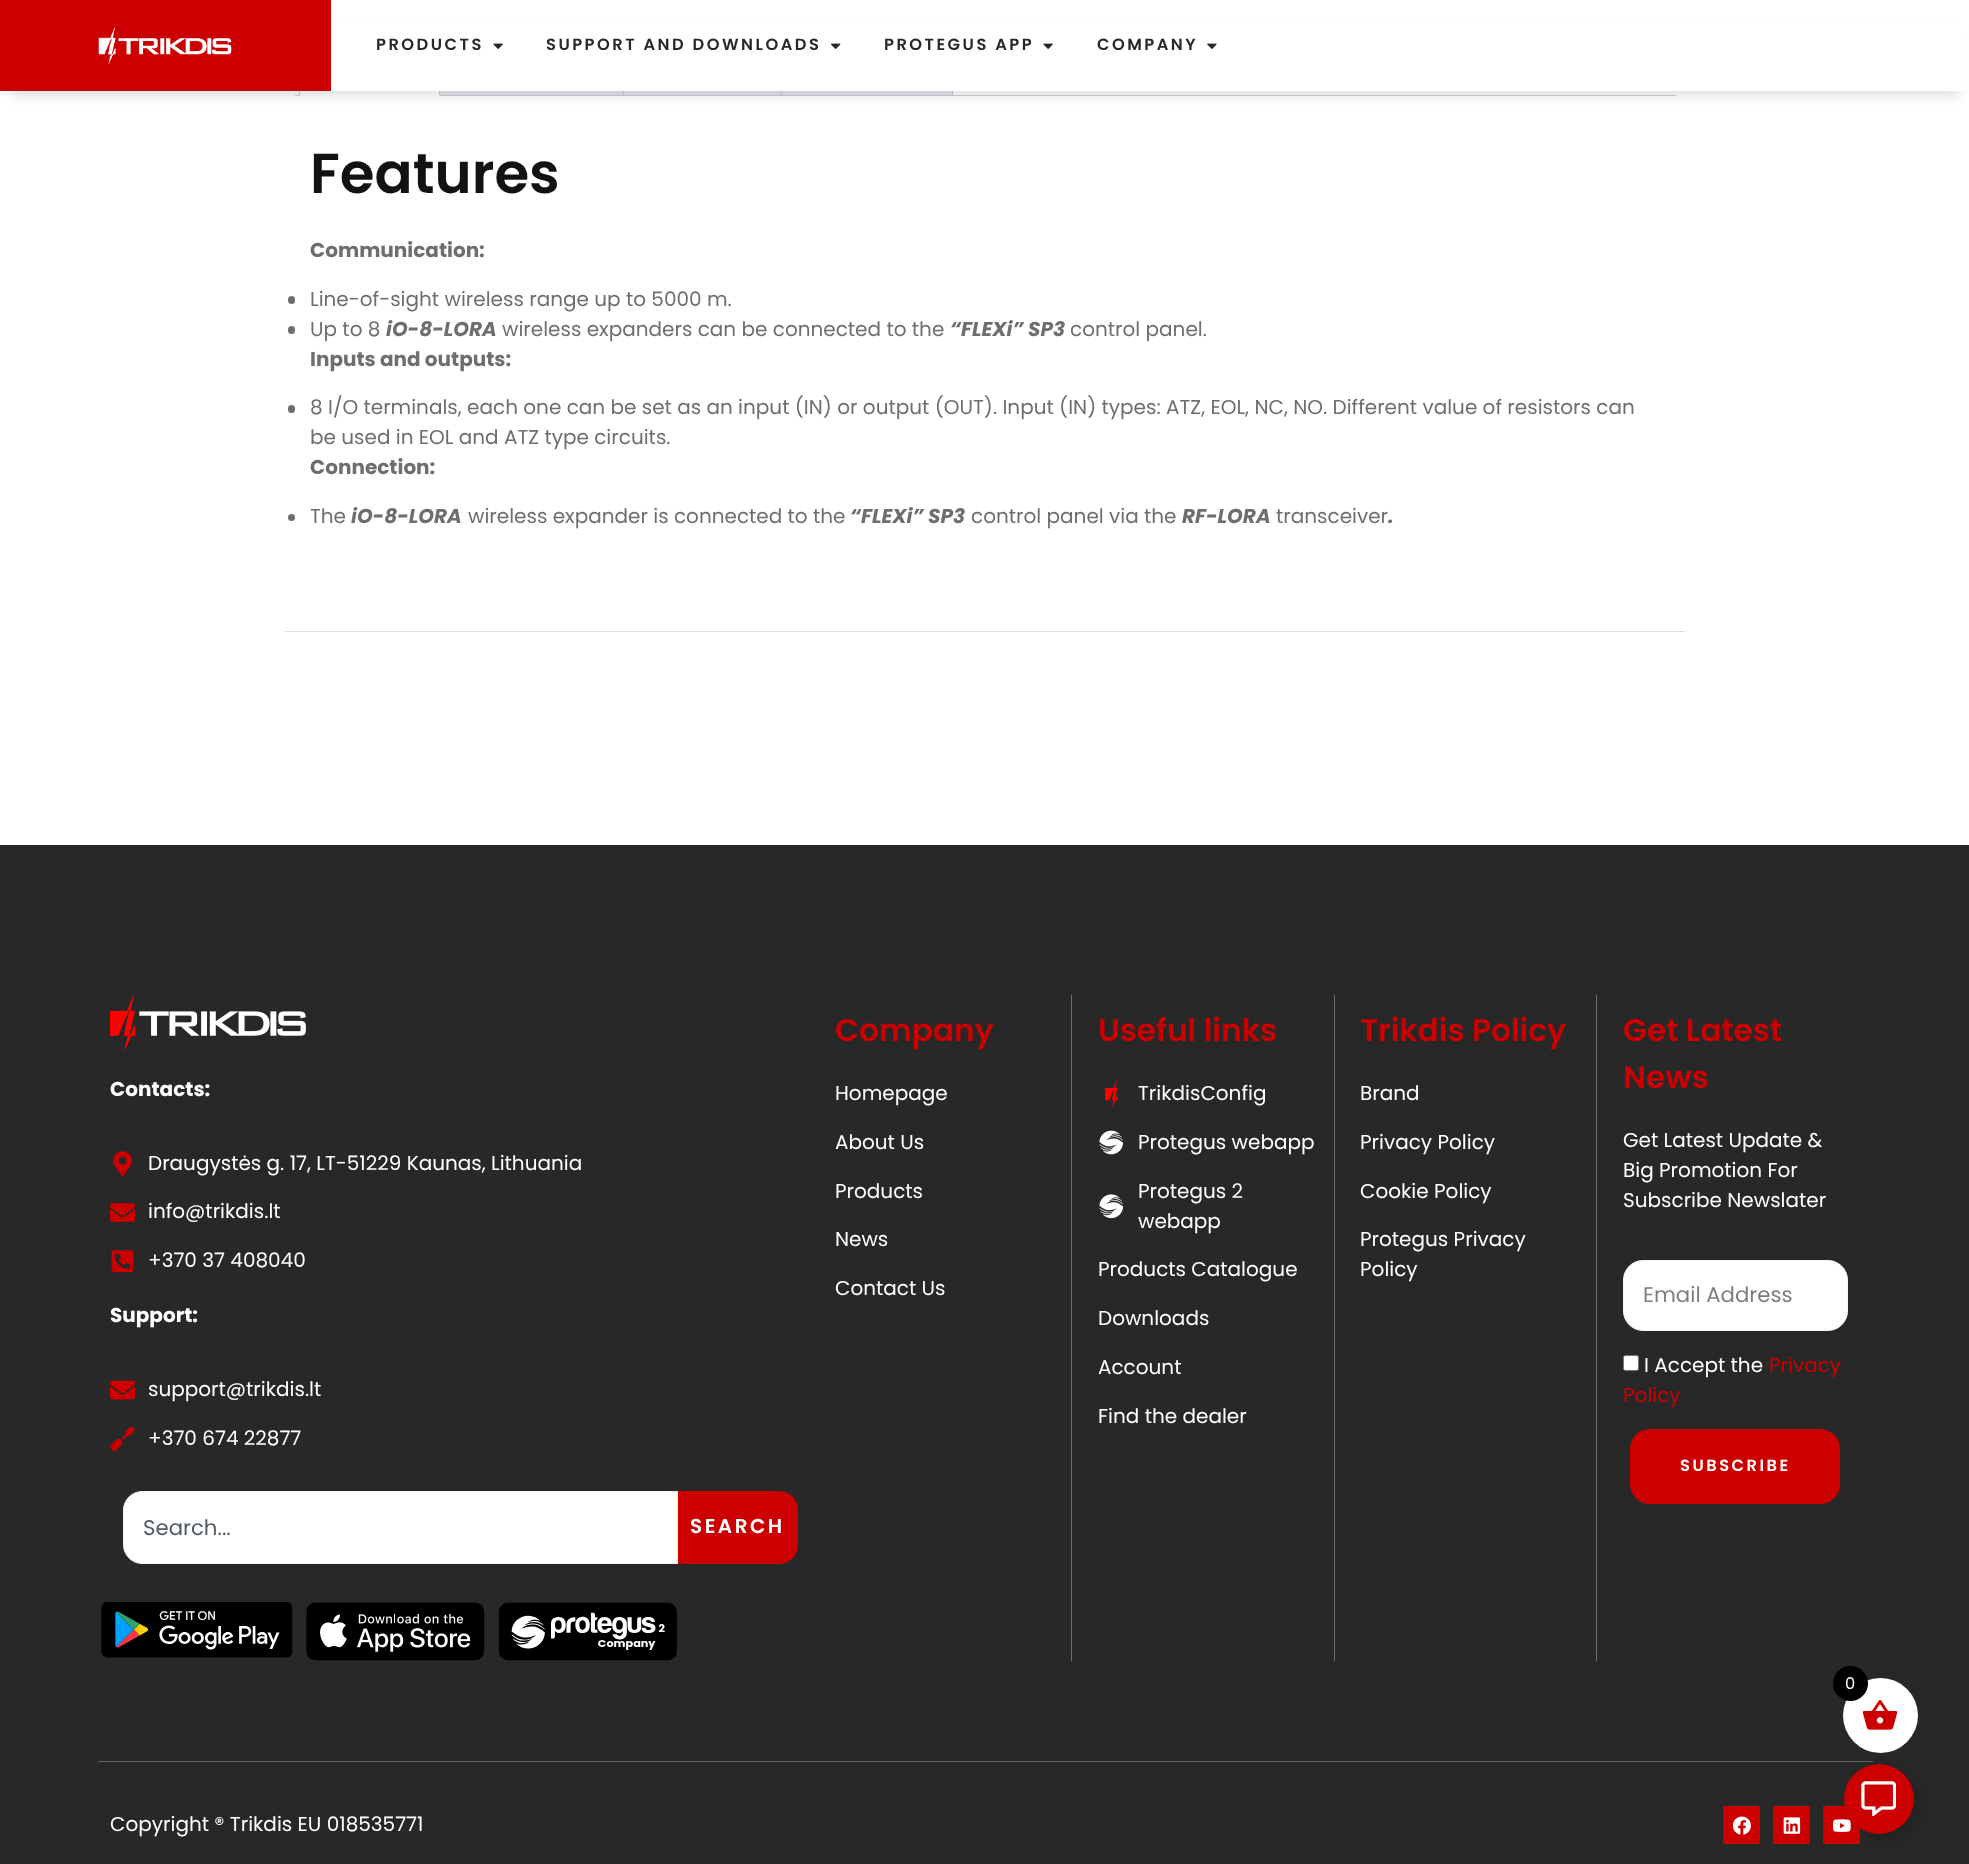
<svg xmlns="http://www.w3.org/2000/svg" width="1969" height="1864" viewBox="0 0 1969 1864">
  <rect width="100%" height="100%" fill="rgb(255,255,255)"/>
  <rect x="440" y="91" width="183" height="4" fill="rgb(233,230,237)"/>
  <rect x="295" y="95" width="1381" height="1" fill="rgb(211,206,210)"/>
  <rect x="433.5" y="41.5" width="196" height="54" fill="none" stroke="rgb(207,200,216)"/>
  <rect x="299" y="91" width="141" height="5" fill="rgb(255,255,255)"/>
  <path d="M440 96V48C440 46 439 44 438 43V44C438 45 439 46 439 48V95Z" fill="rgb(207,200,216)"/>
  <path d="M440 96H299L300 95H439Z" fill="rgb(255,255,255)"/>
  <path d="M299 96L300 95V48C300 46 300 45 301 44V43C300 44 299 46 299 48Z" fill="rgb(207,200,216)"/>
  <rect x="624" y="91" width="157" height="4" fill="rgb(233,230,237)"/>
  <rect x="623.5" y="41.5" width="164" height="54" fill="none" stroke="rgb(207,200,216)"/>
  <rect x="782" y="91" width="170" height="4" fill="rgb(233,230,237)"/>
  <rect x="781.5" y="41.5" width="171" height="54" fill="none" stroke="rgb(207,200,216)"/>
  <rect x="11" y="28" width="1948" height="68" fill="rgba(0,0,0,0.12)" filter="blur(6px)"/>
  <rect x="0" y="0" width="331" height="91" fill="rgb(204,0,0)"/>
  <image x="98" y="27" width="134" height="37" href="pic1.png"/>
  <rect x="331" y="20" width="1636" height="71" fill="rgb(255,255,255)"/>
  <text x="376" y="50" font-family="Poppins" font-size="16.25" font-weight="600" letter-spacing="2.5" fill="rgb(40,40,40)">PRODUCTS</text>
  <image x="493" y="43" width="10" height="6" href="pic2.png"/>
  <text x="546" y="50" font-family="Poppins" font-size="16.25" font-weight="600" letter-spacing="2.5" fill="rgb(40,40,40)">SUPPORT AND DOWNLOADS</text>
  <image x="830" y="43" width="11" height="6" href="pic3.png"/>
  <text x="884" y="50" font-family="Poppins" font-size="16.25" font-weight="600" letter-spacing="2.5" fill="rgb(40,40,40)">PROTEGUS APP</text>
  <image x="1043" y="43" width="10" height="6" href="pic2.png"/>
  <text x="1097" y="50" font-family="Poppins" font-size="16.25" font-weight="600" letter-spacing="2.5" fill="rgb(40,40,40)">COMPANY</text>
  <image x="1207" y="43" width="10" height="6" href="pic4.png"/>
  <text x="310" y="193" font-family="Poppins" font-size="56.25" font-weight="600" fill="rgb(18,18,18)">Features</text>
  <text x="310" y="257" font-family="Poppins" font-size="20" font-weight="bold" fill="rgb(110,110,110)">Communication:</text>
  <rect x="288" y="296" width="7" height="8" rx="3.5" fill="rgb(110,110,110)"/>
  <text x="310" y="306" font-family="Poppins" font-size="20" fill="rgb(110,110,110)">Line-of-sight wireless range up to 5000 m.</text>
  <rect x="288" y="326" width="7" height="8" rx="3.5" fill="rgb(110,110,110)"/>
  <text x="310" y="336" font-family="Poppins" font-size="20" fill="rgb(110,110,110)">Up to 8</text>
  <text x="386" y="336" font-family="Poppins" font-size="20" font-weight="bold" font-style="italic" fill="rgb(110,110,110)">iO-8-LORA</text>
  <text x="502" y="336" font-family="Poppins" font-size="20" fill="rgb(110,110,110)">wireless expanders can be connected to the</text>
  <text x="950" y="336" font-family="Poppins" font-size="20" font-weight="bold" font-style="italic" fill="rgb(110,110,110)">“FLEXi” SP3</text>
  <text x="1070" y="336" font-family="Poppins" font-size="20" fill="rgb(110,110,110)">control panel.</text>
  <text x="310" y="366" font-family="Poppins" font-size="20" font-weight="bold" fill="rgb(110,110,110)">Inputs and outputs:</text>
  <rect x="288" y="405" width="7" height="8" rx="3.5" fill="rgb(110,110,110)"/>
  <g font-family="Poppins" font-size="20" fill="rgb(110,110,110)">
    <text>
      <tspan x="310" y="414">8 I/O terminals, each one can be set as an input (IN) or output (OUT). Input (IN) types: ATZ, EOL, NC, NO. Different value of resistors can</tspan>
      <tspan x="310" y="444">be used in EOL and ATZ type circuits.</tspan>
    </text>
  </g>
  <text x="310" y="474" font-family="Poppins" font-size="20" font-weight="bold" fill="rgb(110,110,110)">Connection:</text>
  <circle cx="291.5" cy="517.5" r="3.5" fill="rgb(110,110,110)"/>
  <text x="310" y="523" font-family="Poppins" font-size="20" fill="rgb(110,110,110)">The</text>
  <text x="351" y="523" font-family="Poppins" font-size="20" font-weight="bold" font-style="italic" fill="rgb(110,110,110)">iO-8-LORA</text>
  <text x="468" y="523" font-family="Poppins" font-size="20" fill="rgb(110,110,110)">wireless expander is connected to the</text>
  <text x="850" y="523" font-family="Poppins" font-size="20" font-weight="bold" font-style="italic" fill="rgb(110,110,110)">“FLEXi” SP3</text>
  <text x="971" y="523" font-family="Poppins" font-size="20" fill="rgb(110,110,110)">control panel via the</text>
  <text x="1182" y="523" font-family="Poppins" font-size="20" font-weight="bold" font-style="italic" fill="rgb(110,110,110)">RF-LORA</text>
  <text x="1276" y="523" font-family="Poppins" font-size="20" fill="rgb(110,110,110)">transceiver</text>
  <text x="1388" y="523" font-family="Poppins" font-size="20" font-weight="bold" font-style="italic" fill="rgb(110,110,110)">.</text>
  <rect x="285" y="631" width="1400" height="1" fill="rgb(222,222,222)"/>
  <rect x="0" y="845" width="1969" height="1019" fill="rgb(40,40,40)"/>
  <image x="110" y="995" width="196" height="55" href="pic5.png"/>
  <text x="110" y="1096" font-family="Poppins" font-size="20" font-weight="bold" fill="rgb(255,255,255)">Contacts:</text>
  <image x="113" y="1151" width="19" height="25" href="pic6.png"/>
  <text x="148" y="1170" font-family="Poppins" font-size="20" fill="rgb(255,255,255)">Draugystės g. 17, LT-51229 Kaunas, Lithuania</text>
  <image x="110" y="1203" width="25" height="19" href="pic7.png"/>
  <text x="148" y="1218" font-family="Poppins" font-size="20" fill="rgb(255,255,255)">info@trikdis.lt</text>
  <image x="111" y="1250" width="23" height="23" href="pic8.png"/>
  <text x="148" y="1267" font-family="Poppins" font-size="20" fill="rgb(255,255,255)">+370 37 408040</text>
  <text x="110" y="1322" font-family="Poppins" font-size="20" font-weight="bold" fill="rgb(255,255,255)">Support:</text>
  <image x="110" y="1380" width="25" height="20" href="pic9.png"/>
  <text x="148" y="1396" font-family="Poppins" font-size="20" fill="rgb(255,255,255)">support@trikdis.lt</text>
  <image x="110" y="1426" width="25" height="25" href="pic10.png"/>
  <text x="148" y="1445" font-family="Poppins" font-size="20" fill="rgb(255,255,255)">+370 674 22877</text>
  <path d="M142 1491.5H677.5V1563.5H142C132 1563.5 123.5 1555 123.5 1545V1510C123.5 1500 132 1491.5 142 1491.5Z" fill="rgb(255,255,255)" stroke="rgb(243,243,243)"/>
  <text x="143" y="1535" font-family="Poppins" font-size="21.25" fill="rgb(81,89,98)">Search...</text>
  <path d="M678 1491H779C789.5 1491 798 1499.5 798 1510V1545C798 1555.5 789.5 1564 779 1564H678Z" fill="rgb(204,0,0)"/>
  <text x="690" y="1533" font-family="Poppins" font-size="20" font-weight="600" letter-spacing="2.5" fill="rgb(255,255,255)">SEARCH</text>
  <image x="101" y="1602" width="192" height="56" href="pic11.png"/>
  <image x="306" y="1602" width="179" height="59" href="pic12.png"/>
  <image x="498" y="1602" width="179" height="59" href="pic13.png"/>
  <rect x="1071" y="995" width="1" height="666" fill="rgb(110,110,110)"/>
  <text x="835" y="1041" font-family="Poppins" font-size="31.25" font-weight="600" fill="rgb(204,0,0)">Company</text>
  <g font-family="Poppins" font-size="20" fill="rgb(255,255,255)">
    <text x="835" y="1100">Homepage</text>
    <text x="835" y="1149">About Us</text>
    <text x="835" y="1198">Products</text>
    <text x="835" y="1246">News</text>
    <text x="835" y="1295">Contact Us</text>
  </g>
  <rect x="1334" y="995" width="1" height="666" fill="rgb(110,110,110)"/>
  <text x="1098" y="1041" font-family="Poppins" font-size="31.25" font-weight="600" fill="rgb(204,0,0)">Useful links</text>
  <image x="1105" y="1080" width="13" height="28" href="pic14.png"/>
  <text x="1138" y="1100" font-family="Poppins" font-size="20" fill="rgb(255,255,255)">TrikdisConfig</text>
  <image x="1099" y="1130" width="25" height="25" href="pic15.png"/>
  <text x="1138" y="1149" font-family="Poppins" font-size="20" fill="rgb(255,255,255)">Protegus webapp</text>
  <image x="1099" y="1194" width="25" height="25" href="pic16.png"/>
  <g font-family="Poppins" font-size="20" fill="rgb(255,255,255)">
    <text>
      <tspan x="1138" y="1198">Protegus 2</tspan>
      <tspan x="1138" y="1228">webapp</tspan>
    </text>
    <text x="1098" y="1276">Products Catalogue</text>
    <text x="1098" y="1325">Downloads</text>
    <text x="1098" y="1374">Account</text>
    <text x="1098" y="1423">Find the dealer</text>
  </g>
  <rect x="1596" y="995" width="1" height="666" fill="rgb(110,110,110)"/>
  <text x="1360" y="1041" font-family="Poppins" font-size="31.25" font-weight="600" fill="rgb(204,0,0)">Trikdis Policy</text>
  <g font-family="Poppins" font-size="20" fill="rgb(255,255,255)">
    <text x="1360" y="1100">Brand</text>
    <text x="1360" y="1149">Privacy Policy</text>
    <text x="1360" y="1198">Cookie Policy</text>
    <text>
      <tspan x="1360" y="1246">Protegus Privacy</tspan>
      <tspan x="1360" y="1276">Policy</tspan>
    </text>
  </g>
  <g font-family="Poppins" font-size="31.25" font-weight="600" fill="rgb(204,0,0)">
    <text>
      <tspan x="1623" y="1041">Get Latest</tspan>
      <tspan x="1623" y="1088">News</tspan>
    </text>
  </g>
  <g font-family="Poppins" font-size="20" fill="rgb(255,255,255)">
    <text>
      <tspan x="1623" y="1147">Get Latest Update &amp;</tspan>
      <tspan x="1623" y="1177">Big Promotion For</tspan>
      <tspan x="1623" y="1207">Subscribe Newslater</tspan>
    </text>
  </g>
  <rect x="1623.5" y="1260.5" width="224" height="70" rx="19.5" fill="rgb(255,255,255)" stroke="rgb(243,243,243)"/>
  <text x="1643" y="1302" font-family="Poppins" font-size="21.25" fill="rgb(126,126,126)">Email Address</text>
  <rect x="1623.5" y="1355.5" width="15" height="15" rx="2" fill="rgb(255,255,255)" stroke="rgb(118,118,118)"/>
  <text x="1644" y="1372" font-family="Poppins" font-size="20" fill="rgb(255,255,255)">I Accept the</text>
  <g font-family="Poppins" font-size="20" fill="rgb(204,0,0)">
    <text x="1769" y="1372">Privacy</text>
    <text x="1623" y="1402">Policy</text>
  </g>
  <rect x="1630" y="1429" width="210" height="75" rx="20" fill="rgb(204,0,0)"/>
  <text x="1680" y="1471" font-family="Poppins" font-size="16.25" font-weight="600" letter-spacing="2.5" fill="rgb(255,255,255)">SUBSCRIBE</text>
  <rect x="98" y="1761" width="1775" height="1" fill="rgb(98,98,98)"/>
  <text x="110" y="1831" font-family="Poppins" font-size="20" fill="rgb(255,255,255)">Copyright ® Trikdis EU 018535771</text>
  <rect x="1723" y="1806" width="37" height="38" fill="rgb(204,0,0)"/>
  <image x="1733" y="1816" width="18" height="19" href="pic17.png"/>
  <rect x="1773" y="1806" width="37" height="38" fill="rgb(204,0,0)"/>
  <image x="1783" y="1817" width="18" height="17" href="pic18.png"/>
  <rect x="1823" y="1806" width="37" height="38" fill="rgb(204,0,0)"/>
  <image x="1833" y="1819" width="18" height="13" href="pic19.png"/>
  <rect x="1849" y="1769" width="70" height="70" rx="35" fill="rgba(0,0,0,0.15)" filter="blur(6px)"/>
  <circle cx="1880.5" cy="1715.5" r="37.5" fill="rgb(255,255,255)"/>
  <image x="1862" y="1700" width="36" height="30" href="pic20.png"/>
  <circle cx="1850.5" cy="1683.5" r="17.5" fill="rgb(0,0,0)"/>
  <text x="1845" y="1689" font-family="Poppins" font-size="16.25" fill="rgb(255,255,255)">0</text>
  <circle cx="1879" cy="1799" r="35" fill="rgb(204,0,0)"/>
  <image x="1861" y="1781" width="35" height="35" href="pic21.png"/>
</svg>
